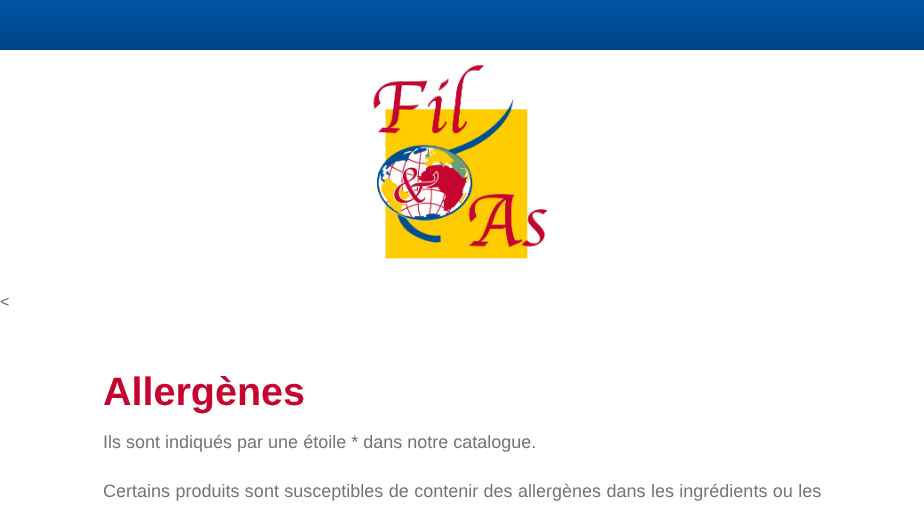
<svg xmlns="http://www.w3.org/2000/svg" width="924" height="511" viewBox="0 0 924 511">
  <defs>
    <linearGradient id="g1" gradientUnits="userSpaceOnUse" x1="462" y1="0" x2="462" y2="50"><stop offset="0" stop-color="rgb(0,84,166)"/><stop offset="1" stop-color="rgb(0,67,133)"/></linearGradient>
  </defs>
  <rect width="100%" height="100%" fill="rgb(255,255,255)"/>
  <rect x="0" y="0" width="924" height="50" fill="url(#g1)"/>
  <image x="373" y="64" width="175" height="195" href="pic1.png"/>
  <text x="0" y="307" font-family="Liberation Sans" font-size="16" fill="rgb(102,102,102)">&lt;</text>
  <text x="103" y="405" font-family="Liberation Sans" font-size="39.5" font-weight="bold" fill="rgb(197,4,48)">Allergènes</text>
  <g font-family="Liberation Sans" font-size="18" fill="rgb(117,117,117)">
    <text x="103" y="448">Ils sont indiqués par une étoile * dans notre catalogue.</text>
    <text x="103" y="497" word-spacing="0.4">Certains produits sont susceptibles de contenir des allergènes dans les ingrédients ou les</text>
  </g>
</svg>
